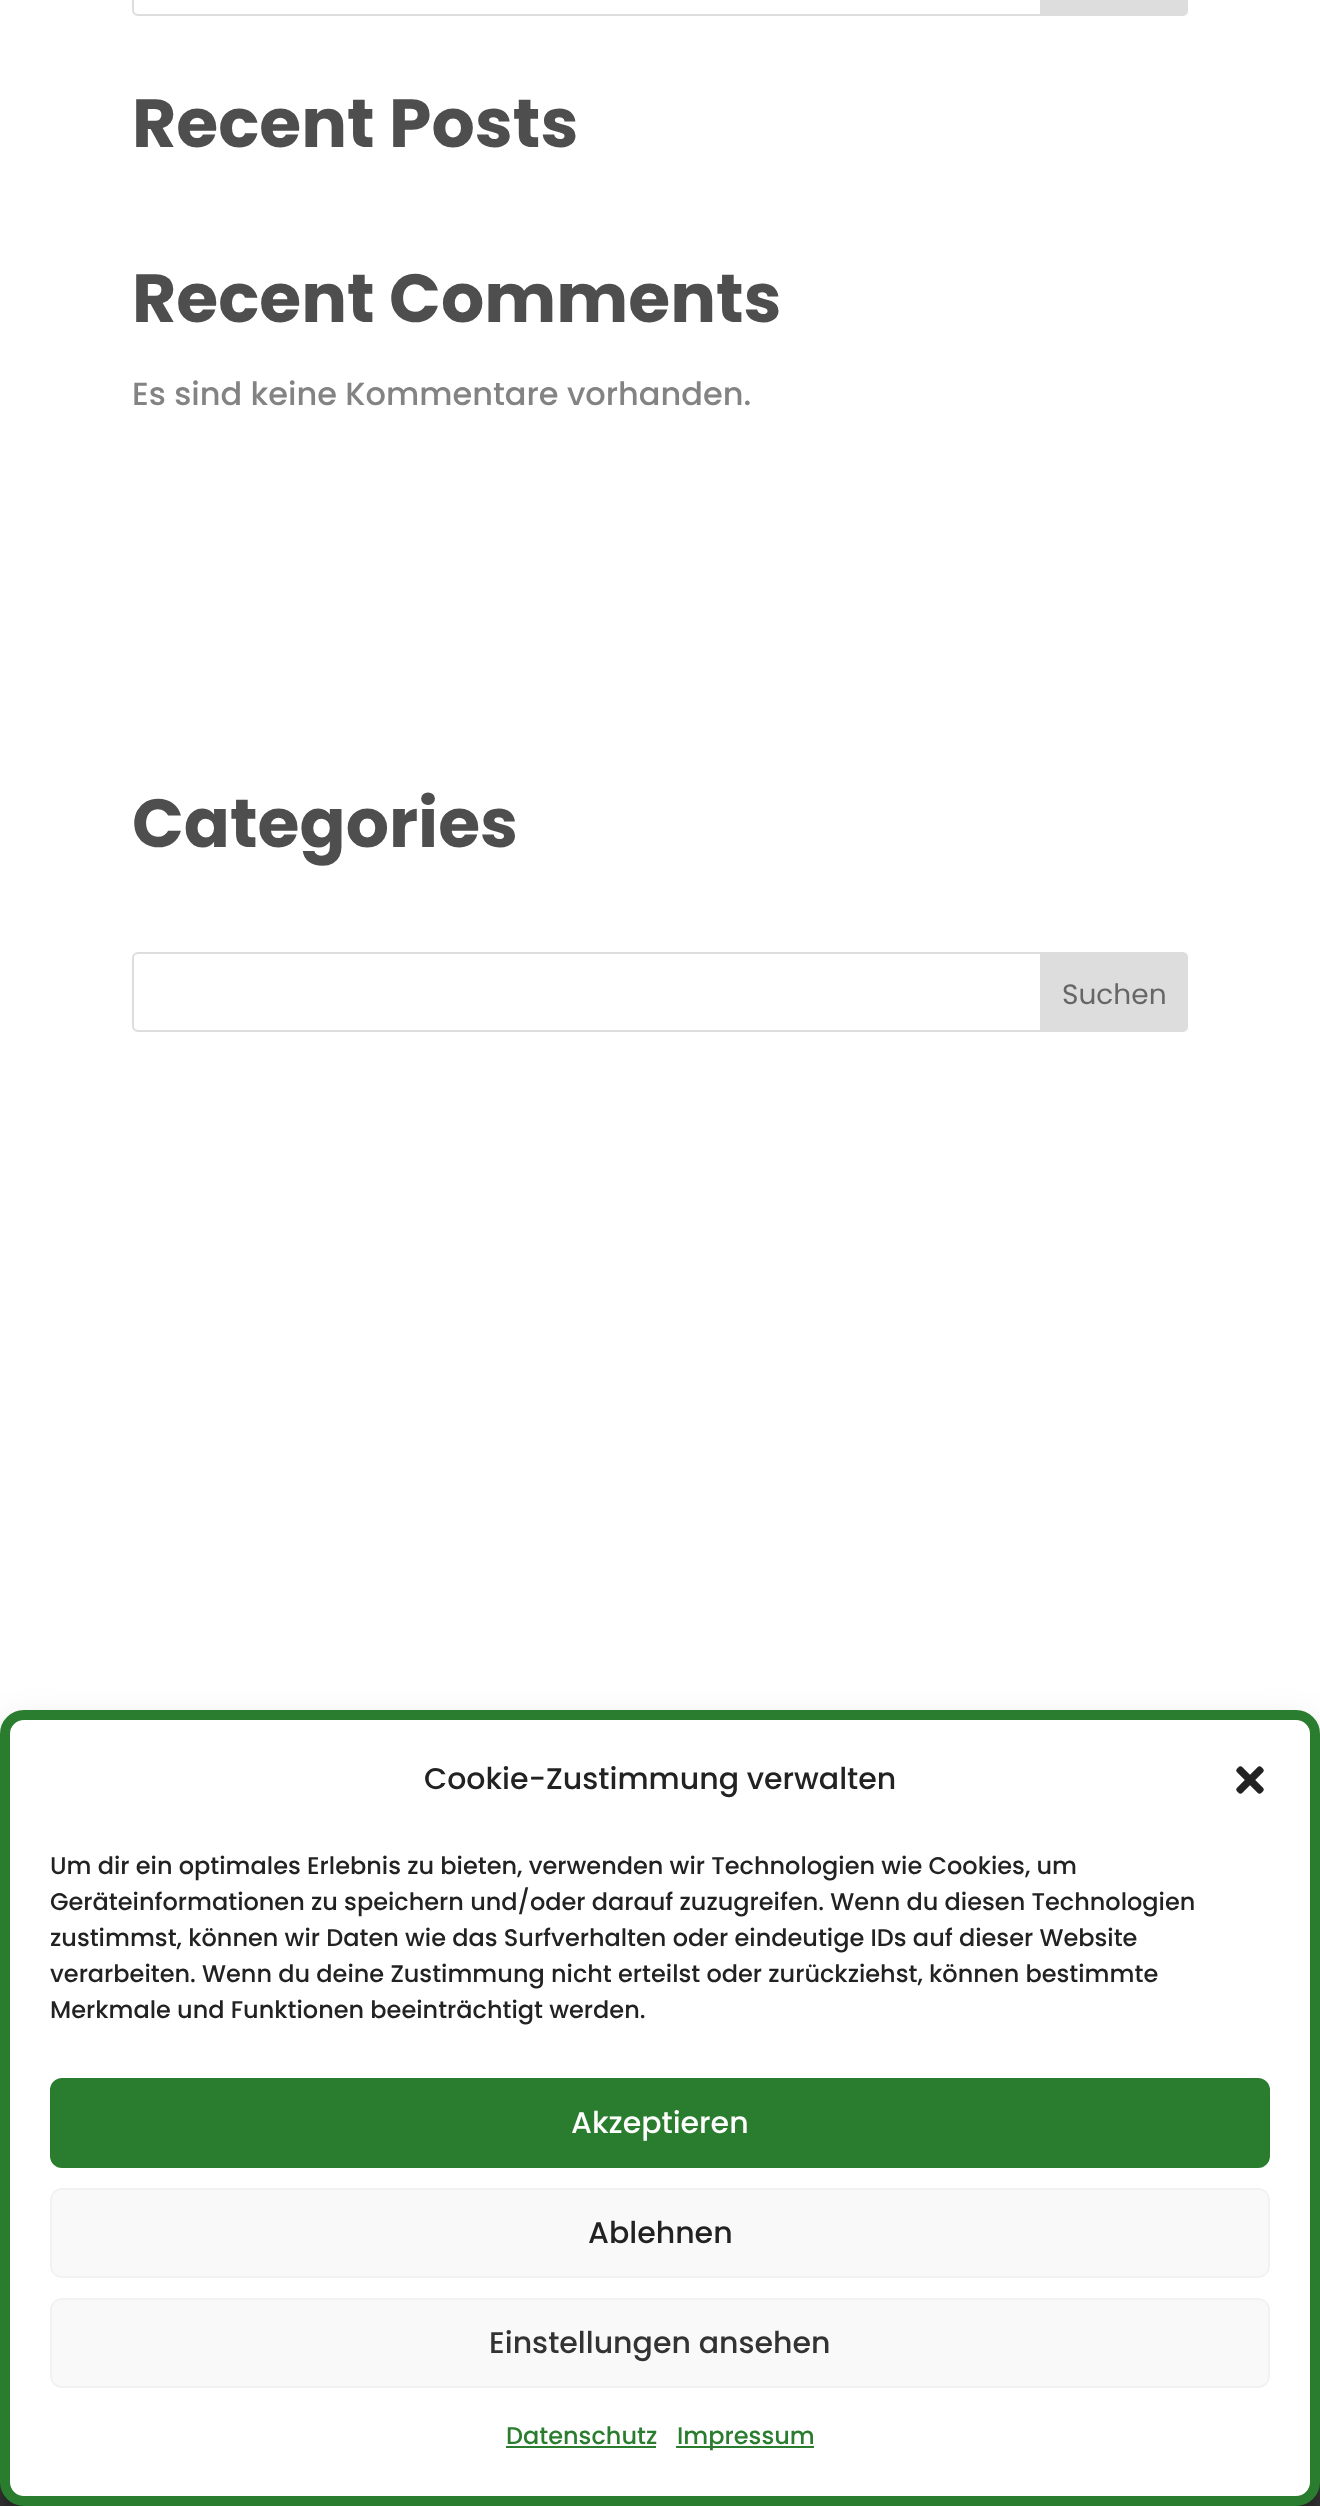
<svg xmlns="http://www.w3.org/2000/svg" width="1320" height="2506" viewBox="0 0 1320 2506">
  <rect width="100%" height="100%" fill="rgb(255,255,255)"/>
  <rect x="133" y="-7" width="1054" height="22" rx="5" fill="none" stroke="rgb(221,221,221)" stroke-width="2"/>
  <path d="M1041-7H1182C1185-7 1187-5 1187-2V10C1187 13 1185 15 1182 15H1041Z" fill="rgb(221,221,221)" stroke="rgb(221,221,221)" stroke-width="2"/>
  <g font-family="Poppins" font-size="68" font-weight="bold" fill="rgb(78,78,78)">
    <text x="132" y="147">Recent Posts</text>
    <text x="132" y="322">Recent Comments</text>
  </g>
  <text x="132" y="405" font-family="Poppins" font-size="32" font-weight="500" fill="rgb(131,131,131)">Es sind keine Kommentare vorhanden.</text>
  <text x="132" y="847" font-family="Poppins" font-size="68" font-weight="bold" fill="rgb(78,78,78)">Categories</text>
  <rect x="133" y="953" width="1054" height="78" rx="5" fill="none" stroke="rgb(221,221,221)" stroke-width="2"/>
  <path d="M1041 953H1182C1185 953 1187 955 1187 958V1026C1187 1029 1185 1031 1182 1031H1041Z" fill="rgb(221,221,221)" stroke="rgb(221,221,221)" stroke-width="2"/>
  <text x="1062" y="1004" font-family="Poppins" font-size="28" fill="rgb(102,102,102)">Suchen</text>
  <rect x="0" y="2482" width="1320" height="24" fill="rgb(56,56,56)"/>
  <rect x="0" y="1722" width="1320" height="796" rx="24" fill="rgba(0,0,0,0.23)" filter="blur(6px)"/>
  <rect x="0" y="1730" width="1320" height="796" rx="24" fill="rgba(0,0,0,0.19)" filter="blur(20px)"/>
  <rect x="5" y="1715" width="1310" height="786" rx="19" fill="rgb(255,255,255)" stroke="rgb(42,125,46)" stroke-width="10"/>
  <text x="424" y="1789" font-family="Poppins" font-size="30" font-weight="500" fill="rgb(34,34,34)">Cookie-Zustimmung verwalten</text>
  <image x="1236" y="1766" width="28" height="28" href="pic1.png"/>
  <g font-family="Poppins" font-size="24" font-weight="500" fill="rgb(34,34,34)">
    <text>
      <tspan x="50" y="1874">Um dir ein optimales Erlebnis zu bieten, verwenden wir Technologien wie Cookies, um</tspan>
      <tspan x="50" y="1910">Geräteinformationen zu speichern und/oder darauf zuzugreifen. Wenn du diesen Technologien</tspan>
      <tspan x="50" y="1946">zustimmst, können wir Daten wie das Surfverhalten oder eindeutige IDs auf dieser Website</tspan>
      <tspan x="50" y="1982">verarbeiten. Wenn du deine Zustimmung nicht erteilst oder zurückziehst, können bestimmte</tspan>
      <tspan x="50" y="2018">Merkmale und Funktionen beeinträchtigt werden.</tspan>
    </text>
  </g>
  <rect x="51" y="2079" width="1218" height="88" rx="11" fill="rgb(42,125,46)" stroke="rgb(42,125,46)" stroke-width="2"/>
  <text x="571" y="2133" font-family="Poppins" font-size="30" font-weight="500" fill="rgb(255,255,255)">Akzeptieren</text>
  <rect x="51" y="2189" width="1218" height="88" rx="11" fill="rgb(249,249,249)" stroke="rgb(242,242,242)" stroke-width="2"/>
  <text x="588" y="2243" font-family="Poppins" font-size="30" font-weight="500" fill="rgb(34,34,34)">Ablehnen</text>
  <rect x="51" y="2299" width="1218" height="88" rx="11" fill="rgb(249,249,249)" stroke="rgb(242,242,242)" stroke-width="2"/>
  <text x="489" y="2353" font-family="Poppins" font-size="30" font-weight="500" fill="rgb(51,51,51)">Einstellungen ansehen</text>
  <text x="506" y="2444" font-family="Poppins" font-size="24" font-weight="500" fill="rgb(42,125,46)">Datenschutz</text>
  <rect x="506" y="2446" width="150" height="2" fill="rgb(42,125,46)"/>
  <rect x="676" y="2446" width="138" height="2" fill="rgb(42,125,46)"/>
  <text x="677" y="2444" font-family="Poppins" font-size="24" font-weight="500" fill="rgb(42,125,46)">Impressum</text>
</svg>
